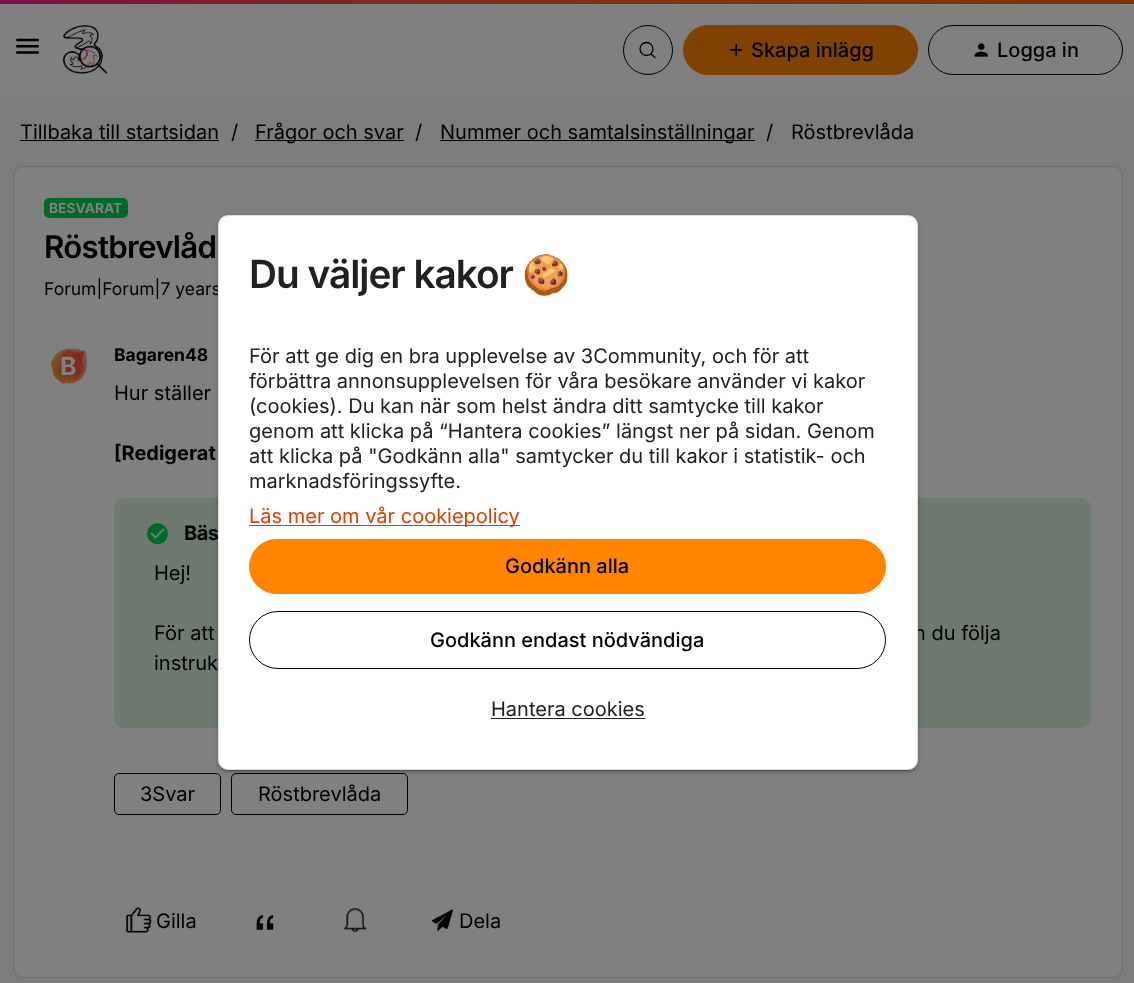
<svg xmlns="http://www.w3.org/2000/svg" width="1134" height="983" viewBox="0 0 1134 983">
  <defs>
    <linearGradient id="g1" gradientUnits="userSpaceOnUse" x1="0" y1="1.9" x2="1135" y2="1.9"><stop offset="0" stop-color="rgb(125,16,72)"/><stop offset="0.2" stop-color="rgb(125,32,46)"/><stop offset="0.4" stop-color="rgb(124,45,26)"/><stop offset="0.6" stop-color="rgb(124,53,13)"/><stop offset="0.8" stop-color="rgb(124,56,8)"/><stop offset="1" stop-color="rgb(128,46,0)"/></linearGradient>
  </defs>
  <rect width="100%" height="100%" fill="rgb(125,125,125)"/>
  <rect x="0" y="0" width="1134" height="4" fill="url(#g1)"/>
  <rect x="0" y="4" width="1134" height="92" fill="rgb(128,128,128)"/>
  <image x="16" y="38" width="23" height="16" href="pic1.png"/>
  <image x="62" y="25" width="46" height="49" href="pic2.png"/>
  <circle cx="648" cy="50" r="24.5" fill="none" stroke="rgb(0,0,0)"/>
  <circle cx="646.5" cy="49" r="6.5" fill="none" stroke="rgb(0,0,0)" stroke-width="1.3"/>
  <path d="M651 54L655 57.5" fill="none" stroke="rgb(0,0,0)" stroke-width="1.3" stroke-linecap="round"/>
  <rect x="683.5" y="25.5" width="234" height="49" rx="24.5" fill="rgb(128,66,0)" stroke="rgb(128,66,0)"/>
  <image x="730" y="44" width="13" height="12" href="pic3.png"/>
  <text x="751" y="57" font-family="Inter" font-size="20" font-weight="500" fill="rgb(0,0,0)">Skapa inlägg</text>
  <rect x="928.5" y="25.5" width="194" height="49" rx="24.5" fill="none" stroke="rgb(0,0,0)"/>
  <image x="974" y="43" width="14" height="14" href="pic4.png"/>
  <text x="997" y="57" font-family="Inter" font-size="20" font-weight="500" fill="rgb(0,0,0)">Logga in</text>
  <text x="20" y="139" font-family="Inter" font-size="20" fill="rgb(0,0,0)">Tillbaka till startsidan</text>
  <rect x="20" y="140" width="199" height="1" fill="rgb(0,0,0)"/>
  <text x="231" y="139" font-family="Inter" font-size="20" fill="rgb(0,0,0)">/</text>
  <rect x="255" y="140" width="149" height="1" fill="rgb(0,0,0)"/>
  <g font-family="Inter" font-size="20" fill="rgb(0,0,0)">
    <text x="255" y="139">Frågor och svar</text>
    <text x="415" y="139">/</text>
  </g>
  <rect x="440" y="140" width="315" height="1" fill="rgb(0,0,0)"/>
  <g font-family="Inter" font-size="20" fill="rgb(0,0,0)">
    <text x="440" y="139">Nummer och samtalsinställningar</text>
    <text x="766" y="139">/</text>
    <text x="791" y="139">Röstbrevlåda</text>
  </g>
  <rect x="13.5" y="166.5" width="1109" height="811" rx="9.5" fill="rgb(128,128,128)" stroke="rgb(110,110,110)"/>
  <rect x="44" y="198" width="84" height="20" rx="5" fill="rgb(0,105,39)"/>
  <text x="49" y="213" font-family="Inter" font-size="13.75" font-weight="bold" fill="rgb(128,128,128)">BESVARAT</text>
  <text x="44" y="258" font-family="Inter" font-size="31.25" font-weight="600" letter-spacing="-0.75" fill="rgb(0,0,0)">Röstbrevlåd</text>
  <text x="44" y="295" font-family="Inter" font-size="17.5" fill="rgb(0,0,0)">Forum|Forum|7 years</text>
  <image x="50" y="348" width="38" height="37" href="pic5.png"/>
  <text x="60" y="375" font-family="Inter" font-size="25" font-weight="bold" fill="rgb(128,128,128)">B</text>
  <text x="114" y="361" font-family="Inter" font-size="17.5" font-weight="bold" fill="rgb(0,0,0)">Bagaren48</text>
  <text x="114" y="400" font-family="Inter" font-size="20" fill="rgb(0,0,0)">Hur ställer</text>
  <text x="114" y="460" font-family="Inter" font-size="20" font-weight="bold" fill="rgb(0,0,0)">[Redigerat</text>
  <rect x="114" y="498" width="977" height="230" rx="10" fill="rgb(110,121,112)"/>
  <image x="147" y="523" width="21" height="22" href="pic6.png"/>
  <text x="184" y="540" font-family="Inter" font-size="20" font-weight="bold" letter-spacing="-0.5" fill="rgb(0,0,0)">Bäs</text>
  <g font-family="Inter" font-size="20" fill="rgb(0,0,0)">
    <text x="154" y="580">Hej!</text>
    <text x="154" y="640">För att</text>
    <text x="914" y="640">n du följa</text>
    <text x="154" y="670">instruk</text>
  </g>
  <rect x="114.5" y="773.5" width="106" height="41" rx="4.5" fill="none" stroke="rgb(0,0,0)"/>
  <text x="140" y="801" font-family="Inter" font-size="20" fill="rgb(0,0,0)">3Svar</text>
  <rect x="231.5" y="773.5" width="176" height="41" rx="4.5" fill="none" stroke="rgb(0,0,0)"/>
  <text x="258" y="801" font-family="Inter" font-size="20" fill="rgb(0,0,0)">Röstbrevlåda</text>
  <image x="126" y="907" width="26" height="26" href="pic7.png"/>
  <text x="156" y="928" font-family="Inter" font-size="20" fill="rgb(0,0,0)">Gilla</text>
  <image x="256" y="915" width="18" height="15" href="pic8.png"/>
  <image x="343" y="907" width="24" height="26" href="pic9.png"/>
  <image x="431" y="909" width="22" height="22" href="pic10.png"/>
  <text x="459" y="928" font-family="Inter" font-size="20" fill="rgb(0,0,0)">Dela</text>
  <rect x="218" y="216" width="700" height="555" rx="10" fill="rgba(0,0,0,0.12)" filter="blur(3px)"/>
  <rect x="218" y="218" width="700" height="555" rx="10" fill="rgba(0,0,0,0.14)" filter="blur(1px)"/>
  <rect x="220" y="221" width="695" height="550" rx="8" fill="rgba(0,0,0,0.2)" filter="blur(0.5px)"/>
  <rect x="218.5" y="215.5" width="699" height="554" rx="9.5" fill="rgb(255,255,255)" stroke="rgb(220,220,220)"/>
  <text x="249" y="288" font-family="Inter" font-size="38.75" font-weight="600" letter-spacing="-1" fill="rgb(33,33,33)">Du väljer kakor</text>
  <text x="522" y="288" font-family="Noto Color Emoji" font-size="38.75" font-weight="bold" letter-spacing="-1" fill="rgb(33,33,33)">🍪</text>
  <g font-family="Inter" font-size="20" fill="rgb(33,33,33)">
    <text>
      <tspan x="249" y="363">För att ge dig en bra upplevelse av 3Community, och för att</tspan>
      <tspan x="249" y="388">förbättra annonsupplevelsen för våra besökare använder vi kakor</tspan>
      <tspan x="249" y="413">(cookies). Du kan när som helst ändra ditt samtycke till kakor</tspan>
      <tspan x="249" y="438">genom att klicka på “Hantera cookies” längst ner på sidan. Genom</tspan>
      <tspan x="249" y="463">att klicka på "Godkänn alla" samtycker du till kakor i statistik- och</tspan>
      <tspan x="249" y="488">marknadsföringssyfte.</tspan>
    </text>
  </g>
  <rect x="249" y="525" width="271" height="1" fill="rgb(214,65,5)"/>
  <text x="249" y="523" font-family="Inter" font-size="20" fill="rgb(214,65,5)">Läs mer om vår cookiepolicy</text>
  <rect x="249.5" y="539.5" width="636" height="54" rx="27" fill="rgb(255,132,0)" stroke="rgb(255,132,0)"/>
  <text x="505" y="573" font-family="Inter" font-size="20" font-weight="500" fill="rgb(0,0,0)">Godkänn alla</text>
  <rect x="249.5" y="611.5" width="636" height="57" rx="28.5" fill="none" stroke="rgb(0,0,0)"/>
  <text x="430" y="647" font-family="Inter" font-size="20" font-weight="500" fill="rgb(0,0,0)">Godkänn endast nödvändiga</text>
  <text x="491" y="716" font-family="Inter" font-size="20" fill="rgb(33,33,33)">Hantera cookies</text>
  <rect x="491" y="718" width="154" height="1" fill="rgb(33,33,33)"/>
</svg>
